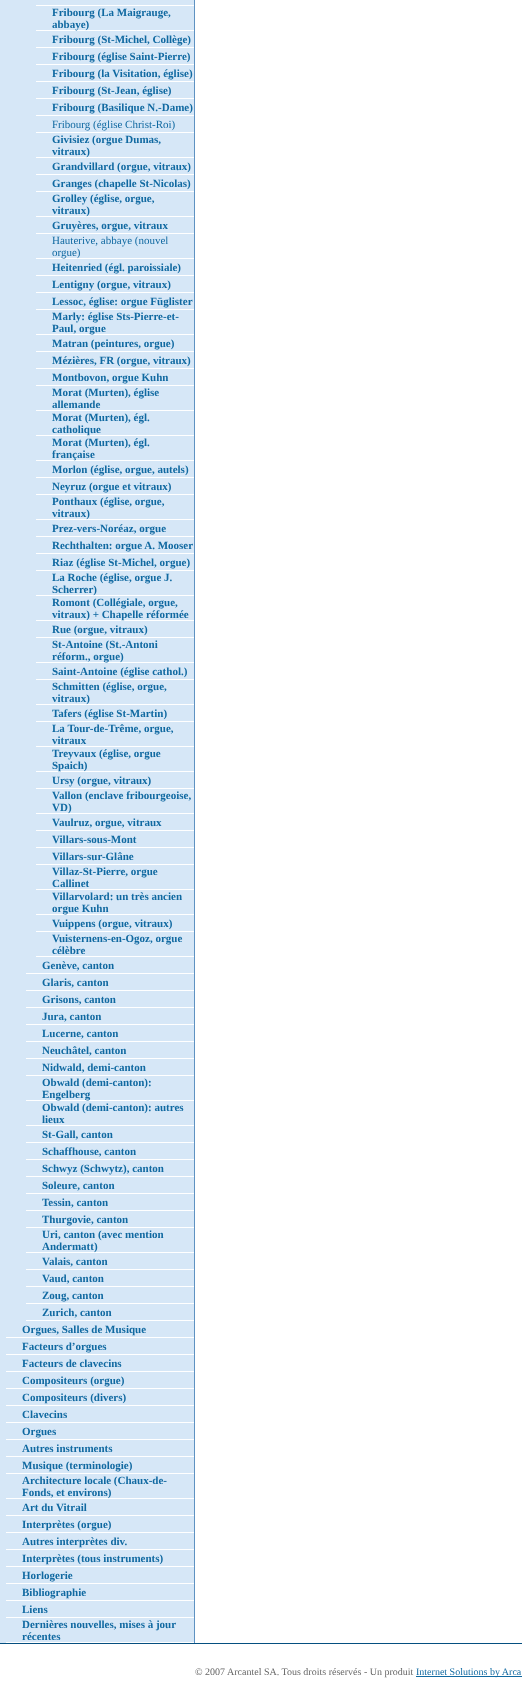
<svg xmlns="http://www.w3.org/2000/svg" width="522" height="1681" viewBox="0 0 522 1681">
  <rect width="100%" height="100%" fill="rgb(255,255,255)"/>
  <rect x="194" y="0" width="1" height="1643" fill="rgb(94,146,194)"/>
  <rect x="0" y="1643" width="522" height="1" fill="rgb(5,79,128)"/>
  <rect x="0" y="0" width="194" height="1643" fill="rgb(214,231,247)"/>
  <rect x="36" y="5" width="158" height="1" fill="rgb(255,255,255)"/>
  <text x="52" y="16" font-family="Liberation Serif" font-size="11" font-weight="bold" fill="rgb(16,105,161)">Fribourg (La Maigrauge,</text>
  <rect x="36" y="30" width="158" height="1" fill="rgb(255,255,255)"/>
  <g font-family="Liberation Serif" font-size="11" font-weight="bold" fill="rgb(16,105,161)">
    <text>
      <tspan x="52" y="28">abbaye)</tspan>
      <tspan x="52" y="43">Fribourg (St-Michel, Collège)</tspan>
    </text>
  </g>
  <rect x="36" y="47" width="158" height="1" fill="rgb(255,255,255)"/>
  <text x="52" y="60" font-family="Liberation Serif" font-size="11" font-weight="bold" fill="rgb(16,105,161)">Fribourg (église Saint-Pierre)</text>
  <rect x="36" y="64" width="158" height="1" fill="rgb(255,255,255)"/>
  <text x="52" y="77" font-family="Liberation Serif" font-size="11" font-weight="bold" fill="rgb(16,105,161)">Fribourg (la Visitation, église)</text>
  <rect x="36" y="81" width="158" height="1" fill="rgb(255,255,255)"/>
  <text x="52" y="94" font-family="Liberation Serif" font-size="11" font-weight="bold" fill="rgb(16,105,161)">Fribourg (St-Jean, église)</text>
  <rect x="36" y="98" width="158" height="1" fill="rgb(255,255,255)"/>
  <text x="52" y="111" font-family="Liberation Serif" font-size="11" font-weight="bold" fill="rgb(16,105,161)">Fribourg (Basilique N.-Dame)</text>
  <rect x="36" y="115" width="158" height="1" fill="rgb(255,255,255)"/>
  <text x="52" y="128" font-family="Liberation Serif" font-size="11" fill="rgb(16,105,161)">Fribourg (église Christ-Roi)</text>
  <rect x="36" y="132" width="158" height="1" fill="rgb(255,255,255)"/>
  <text x="52" y="143" font-family="Liberation Serif" font-size="11" font-weight="bold" fill="rgb(16,105,161)">Givisiez (orgue Dumas,</text>
  <rect x="36" y="157" width="158" height="1" fill="rgb(255,255,255)"/>
  <g font-family="Liberation Serif" font-size="11" font-weight="bold" fill="rgb(16,105,161)">
    <text>
      <tspan x="52" y="155">vitraux)</tspan>
      <tspan x="52" y="170">Grandvillard (orgue, vitraux)</tspan>
    </text>
  </g>
  <rect x="36" y="174" width="158" height="1" fill="rgb(255,255,255)"/>
  <text x="52" y="187" font-family="Liberation Serif" font-size="11" font-weight="bold" fill="rgb(16,105,161)">Granges (chapelle St-Nicolas)</text>
  <rect x="36" y="191" width="158" height="1" fill="rgb(255,255,255)"/>
  <text x="52" y="202" font-family="Liberation Serif" font-size="11" font-weight="bold" fill="rgb(16,105,161)">Grolley (église, orgue,</text>
  <rect x="36" y="216" width="158" height="1" fill="rgb(255,255,255)"/>
  <g font-family="Liberation Serif" font-size="11" font-weight="bold" fill="rgb(16,105,161)">
    <text>
      <tspan x="52" y="214">vitraux)</tspan>
      <tspan x="52" y="229">Gruyères, orgue, vitraux</tspan>
    </text>
  </g>
  <rect x="36" y="233" width="158" height="1" fill="rgb(255,255,255)"/>
  <text x="52" y="244" font-family="Liberation Serif" font-size="11" fill="rgb(16,105,161)">Hauterive, abbaye (nouvel</text>
  <rect x="36" y="258" width="158" height="1" fill="rgb(255,255,255)"/>
  <text x="52" y="256" font-family="Liberation Serif" font-size="11" fill="rgb(16,105,161)">orgue)</text>
  <text x="52" y="271" font-family="Liberation Serif" font-size="11" font-weight="bold" fill="rgb(16,105,161)">Heitenried (égl. paroissiale)</text>
  <rect x="36" y="275" width="158" height="1" fill="rgb(255,255,255)"/>
  <text x="52" y="288" font-family="Liberation Serif" font-size="11" font-weight="bold" fill="rgb(16,105,161)">Lentigny (orgue, vitraux)</text>
  <rect x="36" y="292" width="158" height="1" fill="rgb(255,255,255)"/>
  <text x="52" y="305" font-family="Liberation Serif" font-size="11" font-weight="bold" fill="rgb(16,105,161)">Lessoc, église: orgue Füglister</text>
  <rect x="36" y="309" width="158" height="1" fill="rgb(255,255,255)"/>
  <text x="52" y="320" font-family="Liberation Serif" font-size="11" font-weight="bold" fill="rgb(16,105,161)">Marly: église Sts-Pierre-et-</text>
  <rect x="36" y="334" width="158" height="1" fill="rgb(255,255,255)"/>
  <g font-family="Liberation Serif" font-size="11" font-weight="bold" fill="rgb(16,105,161)">
    <text>
      <tspan x="52" y="332">Paul, orgue</tspan>
      <tspan x="52" y="347">Matran (peintures, orgue)</tspan>
    </text>
  </g>
  <rect x="36" y="351" width="158" height="1" fill="rgb(255,255,255)"/>
  <text x="52" y="364" font-family="Liberation Serif" font-size="11" font-weight="bold" fill="rgb(16,105,161)">Mézières, FR (orgue, vitraux)</text>
  <rect x="36" y="368" width="158" height="1" fill="rgb(255,255,255)"/>
  <text x="52" y="381" font-family="Liberation Serif" font-size="11" font-weight="bold" fill="rgb(16,105,161)">Montbovon, orgue Kuhn</text>
  <rect x="36" y="385" width="158" height="1" fill="rgb(255,255,255)"/>
  <g font-family="Liberation Serif" font-size="11" font-weight="bold" fill="rgb(16,105,161)">
    <text>
      <tspan x="52" y="396">Morat (Murten), église</tspan>
      <tspan x="52" y="408">allemande</tspan>
    </text>
  </g>
  <rect x="36" y="410" width="158" height="1" fill="rgb(255,255,255)"/>
  <text x="52" y="421" font-family="Liberation Serif" font-size="11" font-weight="bold" fill="rgb(16,105,161)">Morat (Murten), égl.</text>
  <rect x="36" y="435" width="158" height="1" fill="rgb(255,255,255)"/>
  <g font-family="Liberation Serif" font-size="11" font-weight="bold" fill="rgb(16,105,161)">
    <text>
      <tspan x="52" y="433">catholique</tspan>
      <tspan x="52" y="446">Morat (Murten), égl.</tspan>
    </text>
  </g>
  <rect x="36" y="460" width="158" height="1" fill="rgb(255,255,255)"/>
  <g font-family="Liberation Serif" font-size="11" font-weight="bold" fill="rgb(16,105,161)">
    <text>
      <tspan x="52" y="458">française</tspan>
      <tspan x="52" y="473">Morlon (église, orgue, autels)</tspan>
    </text>
  </g>
  <rect x="36" y="477" width="158" height="1" fill="rgb(255,255,255)"/>
  <text x="52" y="490" font-family="Liberation Serif" font-size="11" font-weight="bold" fill="rgb(16,105,161)">Neyruz (orgue et vitraux)</text>
  <rect x="36" y="494" width="158" height="1" fill="rgb(255,255,255)"/>
  <text x="52" y="505" font-family="Liberation Serif" font-size="11" font-weight="bold" fill="rgb(16,105,161)">Ponthaux (église, orgue,</text>
  <rect x="36" y="519" width="158" height="1" fill="rgb(255,255,255)"/>
  <g font-family="Liberation Serif" font-size="11" font-weight="bold" fill="rgb(16,105,161)">
    <text>
      <tspan x="52" y="517">vitraux)</tspan>
      <tspan x="52" y="532">Prez-vers-Noréaz, orgue</tspan>
    </text>
  </g>
  <rect x="36" y="536" width="158" height="1" fill="rgb(255,255,255)"/>
  <text x="52" y="549" font-family="Liberation Serif" font-size="11" font-weight="bold" fill="rgb(16,105,161)">Rechthalten: orgue A. Mooser</text>
  <rect x="36" y="553" width="158" height="1" fill="rgb(255,255,255)"/>
  <text x="52" y="566" font-family="Liberation Serif" font-size="11" font-weight="bold" fill="rgb(16,105,161)">Riaz (église St-Michel, orgue)</text>
  <rect x="36" y="570" width="158" height="1" fill="rgb(255,255,255)"/>
  <text x="52" y="581" font-family="Liberation Serif" font-size="11" font-weight="bold" fill="rgb(16,105,161)">La Roche (église, orgue J.</text>
  <rect x="36" y="595" width="158" height="1" fill="rgb(255,255,255)"/>
  <g font-family="Liberation Serif" font-size="11" font-weight="bold" fill="rgb(16,105,161)">
    <text>
      <tspan x="52" y="593">Scherrer)</tspan>
      <tspan x="52" y="606">Romont (Collégiale, orgue,</tspan>
    </text>
  </g>
  <rect x="36" y="620" width="158" height="1" fill="rgb(255,255,255)"/>
  <g font-family="Liberation Serif" font-size="11" font-weight="bold" fill="rgb(16,105,161)">
    <text>
      <tspan x="52" y="618">vitraux) + Chapelle réformée</tspan>
      <tspan x="52" y="633">Rue (orgue, vitraux)</tspan>
    </text>
  </g>
  <rect x="36" y="637" width="158" height="1" fill="rgb(255,255,255)"/>
  <text x="52" y="648" font-family="Liberation Serif" font-size="11" font-weight="bold" fill="rgb(16,105,161)">St-Antoine (St.-Antoni</text>
  <rect x="36" y="662" width="158" height="1" fill="rgb(255,255,255)"/>
  <g font-family="Liberation Serif" font-size="11" font-weight="bold" fill="rgb(16,105,161)">
    <text>
      <tspan x="52" y="660">réform., orgue)</tspan>
      <tspan x="52" y="675">Saint-Antoine (église cathol.)</tspan>
    </text>
  </g>
  <rect x="36" y="679" width="158" height="1" fill="rgb(255,255,255)"/>
  <text x="52" y="690" font-family="Liberation Serif" font-size="11" font-weight="bold" fill="rgb(16,105,161)">Schmitten (église, orgue,</text>
  <rect x="36" y="704" width="158" height="1" fill="rgb(255,255,255)"/>
  <g font-family="Liberation Serif" font-size="11" font-weight="bold" fill="rgb(16,105,161)">
    <text>
      <tspan x="52" y="702">vitraux)</tspan>
      <tspan x="52" y="717">Tafers (église St-Martin)</tspan>
    </text>
  </g>
  <rect x="36" y="721" width="158" height="1" fill="rgb(255,255,255)"/>
  <g font-family="Liberation Serif" font-size="11" font-weight="bold" fill="rgb(16,105,161)">
    <text>
      <tspan x="52" y="732">La Tour-de-Trême, orgue,</tspan>
      <tspan x="52" y="744">vitraux</tspan>
    </text>
  </g>
  <rect x="36" y="746" width="158" height="1" fill="rgb(255,255,255)"/>
  <text x="52" y="757" font-family="Liberation Serif" font-size="11" font-weight="bold" fill="rgb(16,105,161)">Treyvaux (église, orgue</text>
  <rect x="36" y="771" width="158" height="1" fill="rgb(255,255,255)"/>
  <g font-family="Liberation Serif" font-size="11" font-weight="bold" fill="rgb(16,105,161)">
    <text>
      <tspan x="52" y="769">Spaich)</tspan>
      <tspan x="52" y="784">Ursy (orgue, vitraux)</tspan>
    </text>
  </g>
  <rect x="36" y="788" width="158" height="1" fill="rgb(255,255,255)"/>
  <text x="52" y="799" font-family="Liberation Serif" font-size="11" font-weight="bold" fill="rgb(16,105,161)">Vallon (enclave fribourgeoise,</text>
  <rect x="36" y="813" width="158" height="1" fill="rgb(255,255,255)"/>
  <g font-family="Liberation Serif" font-size="11" font-weight="bold" fill="rgb(16,105,161)">
    <text>
      <tspan x="52" y="811">VD)</tspan>
      <tspan x="52" y="826">Vaulruz, orgue, vitraux</tspan>
    </text>
  </g>
  <rect x="36" y="830" width="158" height="1" fill="rgb(255,255,255)"/>
  <text x="52" y="843" font-family="Liberation Serif" font-size="11" font-weight="bold" fill="rgb(16,105,161)">Villars-sous-Mont</text>
  <rect x="36" y="847" width="158" height="1" fill="rgb(255,255,255)"/>
  <text x="52" y="860" font-family="Liberation Serif" font-size="11" font-weight="bold" fill="rgb(16,105,161)">Villars-sur-Glâne</text>
  <rect x="36" y="864" width="158" height="1" fill="rgb(255,255,255)"/>
  <g font-family="Liberation Serif" font-size="11" font-weight="bold" fill="rgb(16,105,161)">
    <text>
      <tspan x="52" y="875">Villaz-St-Pierre, orgue</tspan>
      <tspan x="52" y="887">Callinet</tspan>
    </text>
  </g>
  <rect x="36" y="889" width="158" height="1" fill="rgb(255,255,255)"/>
  <text x="52" y="900" font-family="Liberation Serif" font-size="11" font-weight="bold" fill="rgb(16,105,161)">Villarvolard: un très ancien</text>
  <rect x="36" y="914" width="158" height="1" fill="rgb(255,255,255)"/>
  <g font-family="Liberation Serif" font-size="11" font-weight="bold" fill="rgb(16,105,161)">
    <text>
      <tspan x="52" y="912">orgue Kuhn</tspan>
      <tspan x="52" y="927">Vuippens (orgue, vitraux)</tspan>
    </text>
  </g>
  <rect x="36" y="931" width="158" height="1" fill="rgb(255,255,255)"/>
  <g font-family="Liberation Serif" font-size="11" font-weight="bold" fill="rgb(16,105,161)">
    <text>
      <tspan x="52" y="942">Vuisternens-en-Ogoz, orgue</tspan>
      <tspan x="52" y="954">célèbre</tspan>
    </text>
  </g>
  <rect x="36" y="956" width="158" height="1" fill="rgb(255,255,255)"/>
  <text x="42" y="969" font-family="Liberation Serif" font-size="11" font-weight="bold" fill="rgb(16,105,161)">Genève, canton</text>
  <rect x="26" y="973" width="168" height="1" fill="rgb(255,255,255)"/>
  <text x="42" y="986" font-family="Liberation Serif" font-size="11" font-weight="bold" fill="rgb(16,105,161)">Glaris, canton</text>
  <rect x="26" y="990" width="168" height="1" fill="rgb(255,255,255)"/>
  <text x="42" y="1003" font-family="Liberation Serif" font-size="11" font-weight="bold" fill="rgb(16,105,161)">Grisons, canton</text>
  <rect x="26" y="1007" width="168" height="1" fill="rgb(255,255,255)"/>
  <text x="42" y="1020" font-family="Liberation Serif" font-size="11" font-weight="bold" fill="rgb(16,105,161)">Jura, canton</text>
  <rect x="26" y="1024" width="168" height="1" fill="rgb(255,255,255)"/>
  <text x="42" y="1037" font-family="Liberation Serif" font-size="11" font-weight="bold" fill="rgb(16,105,161)">Lucerne, canton</text>
  <rect x="26" y="1041" width="168" height="1" fill="rgb(255,255,255)"/>
  <text x="42" y="1054" font-family="Liberation Serif" font-size="11" font-weight="bold" fill="rgb(16,105,161)">Neuchâtel, canton</text>
  <rect x="26" y="1058" width="168" height="1" fill="rgb(255,255,255)"/>
  <text x="42" y="1071" font-family="Liberation Serif" font-size="11" font-weight="bold" fill="rgb(16,105,161)">Nidwald, demi-canton</text>
  <rect x="26" y="1075" width="168" height="1" fill="rgb(255,255,255)"/>
  <text x="42" y="1086" font-family="Liberation Serif" font-size="11" font-weight="bold" fill="rgb(16,105,161)">Obwald (demi-canton):</text>
  <rect x="26" y="1100" width="168" height="1" fill="rgb(255,255,255)"/>
  <g font-family="Liberation Serif" font-size="11" font-weight="bold" fill="rgb(16,105,161)">
    <text>
      <tspan x="42" y="1098">Engelberg</tspan>
      <tspan x="42" y="1111">Obwald (demi-canton): autres</tspan>
      <tspan x="42" y="1123">lieux</tspan>
    </text>
  </g>
  <rect x="26" y="1125" width="168" height="1" fill="rgb(255,255,255)"/>
  <text x="42" y="1138" font-family="Liberation Serif" font-size="11" font-weight="bold" fill="rgb(16,105,161)">St-Gall, canton</text>
  <rect x="26" y="1142" width="168" height="1" fill="rgb(255,255,255)"/>
  <text x="42" y="1155" font-family="Liberation Serif" font-size="11" font-weight="bold" fill="rgb(16,105,161)">Schaffhouse, canton</text>
  <rect x="26" y="1159" width="168" height="1" fill="rgb(255,255,255)"/>
  <text x="42" y="1172" font-family="Liberation Serif" font-size="11" font-weight="bold" fill="rgb(16,105,161)">Schwyz (Schwytz), canton</text>
  <rect x="26" y="1176" width="168" height="1" fill="rgb(255,255,255)"/>
  <text x="42" y="1189" font-family="Liberation Serif" font-size="11" font-weight="bold" fill="rgb(16,105,161)">Soleure, canton</text>
  <rect x="26" y="1193" width="168" height="1" fill="rgb(255,255,255)"/>
  <text x="42" y="1206" font-family="Liberation Serif" font-size="11" font-weight="bold" fill="rgb(16,105,161)">Tessin, canton</text>
  <rect x="26" y="1210" width="168" height="1" fill="rgb(255,255,255)"/>
  <text x="42" y="1223" font-family="Liberation Serif" font-size="11" font-weight="bold" fill="rgb(16,105,161)">Thurgovie, canton</text>
  <rect x="26" y="1227" width="168" height="1" fill="rgb(255,255,255)"/>
  <text x="42" y="1238" font-family="Liberation Serif" font-size="11" font-weight="bold" fill="rgb(16,105,161)">Uri, canton (avec mention</text>
  <rect x="26" y="1252" width="168" height="1" fill="rgb(255,255,255)"/>
  <g font-family="Liberation Serif" font-size="11" font-weight="bold" fill="rgb(16,105,161)">
    <text>
      <tspan x="42" y="1250">Andermatt)</tspan>
      <tspan x="42" y="1265">Valais, canton</tspan>
    </text>
  </g>
  <rect x="26" y="1269" width="168" height="1" fill="rgb(255,255,255)"/>
  <text x="42" y="1282" font-family="Liberation Serif" font-size="11" font-weight="bold" fill="rgb(16,105,161)">Vaud, canton</text>
  <rect x="26" y="1286" width="168" height="1" fill="rgb(255,255,255)"/>
  <text x="42" y="1299" font-family="Liberation Serif" font-size="11" font-weight="bold" fill="rgb(16,105,161)">Zoug, canton</text>
  <rect x="26" y="1303" width="168" height="1" fill="rgb(255,255,255)"/>
  <text x="42" y="1316" font-family="Liberation Serif" font-size="11" font-weight="bold" fill="rgb(16,105,161)">Zurich, canton</text>
  <rect x="26" y="1320" width="168" height="1" fill="rgb(255,255,255)"/>
  <text x="22" y="1333" font-family="Liberation Serif" font-size="11" font-weight="bold" fill="rgb(16,105,161)">Orgues, Salles de Musique</text>
  <rect x="6" y="1337" width="188" height="1" fill="rgb(255,255,255)"/>
  <text x="22" y="1350" font-family="Liberation Serif" font-size="11" font-weight="bold" fill="rgb(16,105,161)">Facteurs d’orgues</text>
  <rect x="6" y="1354" width="188" height="1" fill="rgb(255,255,255)"/>
  <text x="22" y="1367" font-family="Liberation Serif" font-size="11" font-weight="bold" fill="rgb(16,105,161)">Facteurs de clavecins</text>
  <rect x="6" y="1371" width="188" height="1" fill="rgb(255,255,255)"/>
  <text x="22" y="1384" font-family="Liberation Serif" font-size="11" font-weight="bold" fill="rgb(16,105,161)">Compositeurs (orgue)</text>
  <rect x="6" y="1388" width="188" height="1" fill="rgb(255,255,255)"/>
  <text x="22" y="1401" font-family="Liberation Serif" font-size="11" font-weight="bold" fill="rgb(16,105,161)">Compositeurs (divers)</text>
  <rect x="6" y="1405" width="188" height="1" fill="rgb(255,255,255)"/>
  <text x="22" y="1418" font-family="Liberation Serif" font-size="11" font-weight="bold" fill="rgb(16,105,161)">Clavecins</text>
  <rect x="6" y="1422" width="188" height="1" fill="rgb(255,255,255)"/>
  <text x="22" y="1435" font-family="Liberation Serif" font-size="11" font-weight="bold" fill="rgb(16,105,161)">Orgues</text>
  <rect x="6" y="1439" width="188" height="1" fill="rgb(255,255,255)"/>
  <text x="22" y="1452" font-family="Liberation Serif" font-size="11" font-weight="bold" fill="rgb(16,105,161)">Autres instruments</text>
  <rect x="6" y="1456" width="188" height="1" fill="rgb(255,255,255)"/>
  <text x="22" y="1469" font-family="Liberation Serif" font-size="11" font-weight="bold" fill="rgb(16,105,161)">Musique (terminologie)</text>
  <rect x="6" y="1473" width="188" height="1" fill="rgb(255,255,255)"/>
  <text x="22" y="1484" font-family="Liberation Serif" font-size="11" font-weight="bold" fill="rgb(16,105,161)">Architecture locale (Chaux-de-</text>
  <rect x="6" y="1498" width="188" height="1" fill="rgb(255,255,255)"/>
  <g font-family="Liberation Serif" font-size="11" font-weight="bold" fill="rgb(16,105,161)">
    <text>
      <tspan x="22" y="1496">Fonds, et environs)</tspan>
      <tspan x="22" y="1511">Art du Vitrail</tspan>
    </text>
  </g>
  <rect x="6" y="1515" width="188" height="1" fill="rgb(255,255,255)"/>
  <text x="22" y="1528" font-family="Liberation Serif" font-size="11" font-weight="bold" fill="rgb(16,105,161)">Interprètes (orgue)</text>
  <rect x="6" y="1532" width="188" height="1" fill="rgb(255,255,255)"/>
  <text x="22" y="1545" font-family="Liberation Serif" font-size="11" font-weight="bold" fill="rgb(16,105,161)">Autres interprètes div.</text>
  <rect x="6" y="1549" width="188" height="1" fill="rgb(255,255,255)"/>
  <text x="22" y="1562" font-family="Liberation Serif" font-size="11" font-weight="bold" fill="rgb(16,105,161)">Interprètes (tous instruments)</text>
  <rect x="6" y="1566" width="188" height="1" fill="rgb(255,255,255)"/>
  <text x="22" y="1579" font-family="Liberation Serif" font-size="11" font-weight="bold" fill="rgb(16,105,161)">Horlogerie</text>
  <rect x="6" y="1583" width="188" height="1" fill="rgb(255,255,255)"/>
  <text x="22" y="1596" font-family="Liberation Serif" font-size="11" font-weight="bold" fill="rgb(16,105,161)">Bibliographie</text>
  <rect x="6" y="1600" width="188" height="1" fill="rgb(255,255,255)"/>
  <text x="22" y="1613" font-family="Liberation Serif" font-size="11" font-weight="bold" fill="rgb(16,105,161)">Liens</text>
  <rect x="6" y="1617" width="188" height="1" fill="rgb(255,255,255)"/>
  <g font-family="Liberation Serif" font-size="11" font-weight="bold" fill="rgb(16,105,161)">
    <text>
      <tspan x="22" y="1628">Dernières nouvelles, mises à jour</tspan>
      <tspan x="22" y="1640">récentes</tspan>
    </text>
  </g>
  <rect x="6" y="1642" width="188" height="1" fill="rgb(255,255,255)"/>
  <text x="195" y="1675" font-family="Liberation Serif" font-size="10" fill="rgb(102,102,102)">© 2007 Arcantel SA. Tous droits réservés - Un produit</text>
  <rect x="416" y="1676" width="106" height="1" fill="rgb(16,105,161)"/>
  <text x="416" y="1675" font-family="Liberation Serif" font-size="10" fill="rgb(16,105,161)">Internet Solutions by Arca</text>
</svg>
